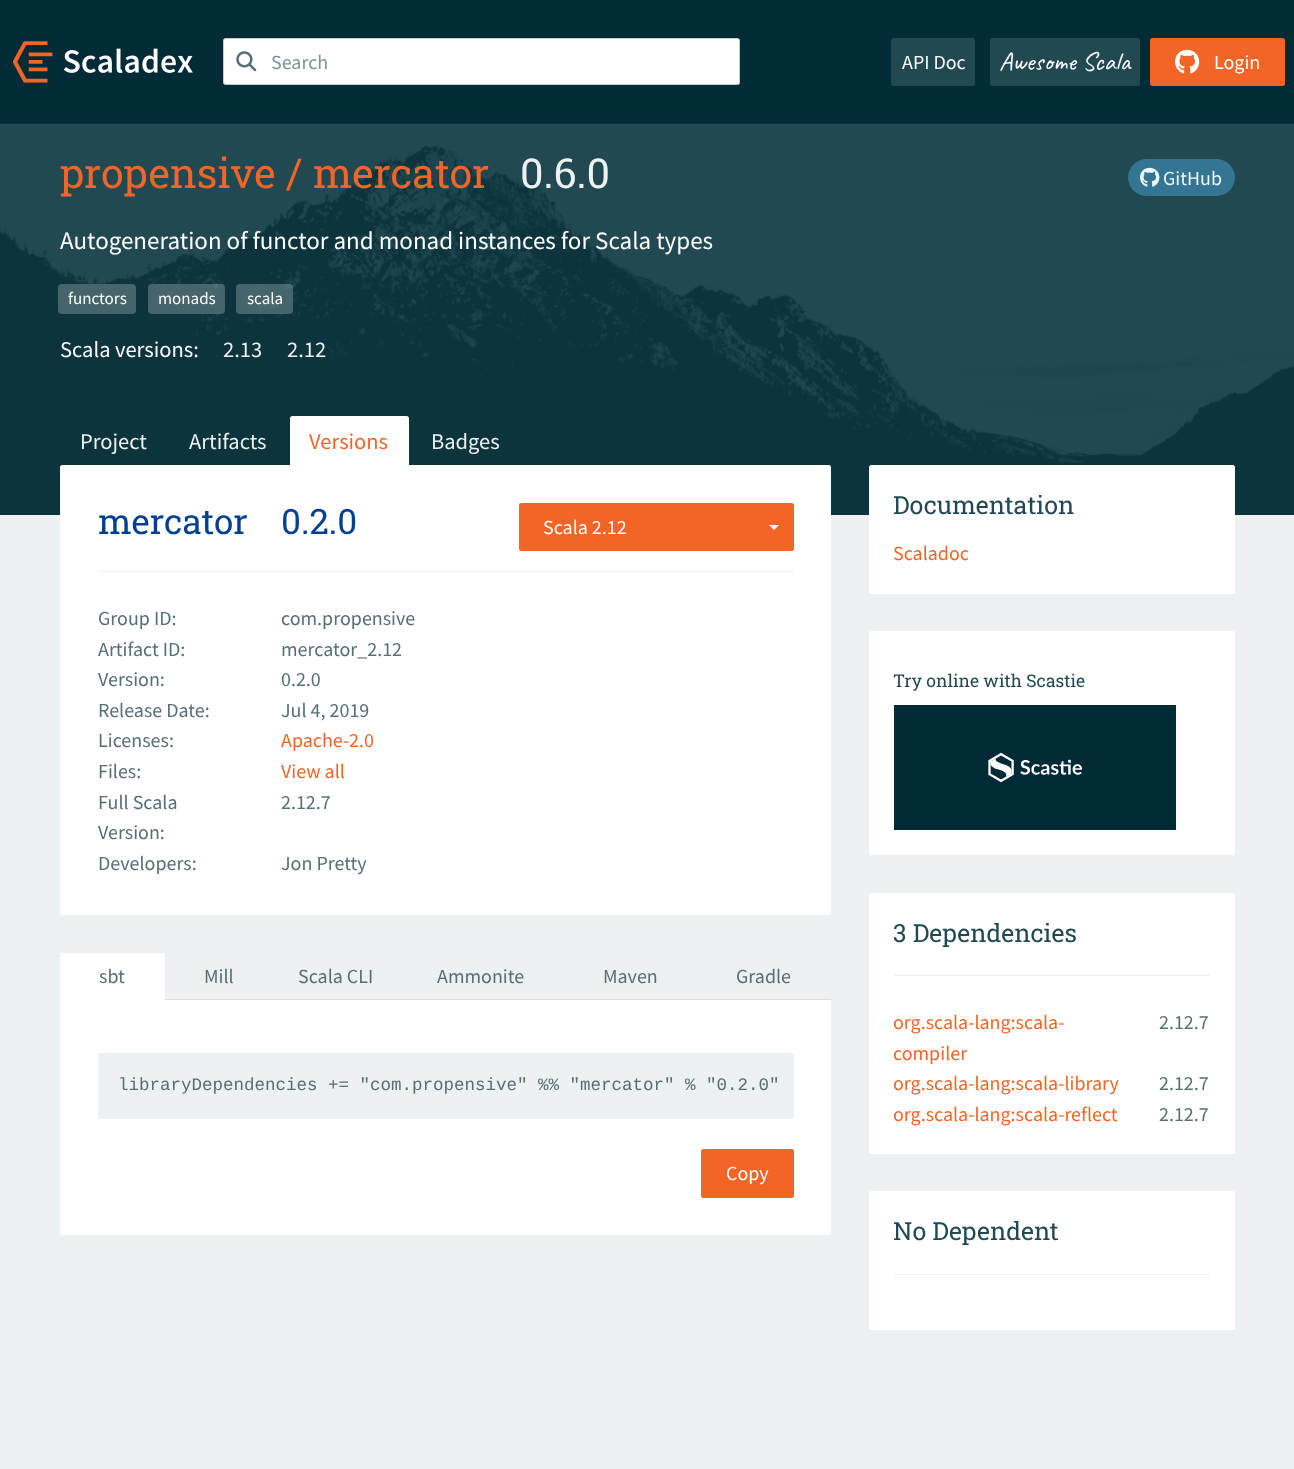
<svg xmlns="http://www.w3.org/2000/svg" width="1294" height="1469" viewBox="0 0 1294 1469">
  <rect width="100%" height="100%" fill="rgb(237,241,241)"/>
  <rect x="0" y="0" width="1294" height="124" fill="rgb(0,43,55)"/>
  <image x="13" y="41" width="180" height="42" href="pic1.png"/>
  <rect x="223.5" y="38.5" width="516" height="46" rx="2" fill="rgb(255,255,255)" stroke="rgb(204,204,204)"/>
  <image x="236" y="51" width="21" height="21" href="pic2.png"/>
  <text x="271" y="69" font-family="Source Sans Pro" font-size="20" fill="rgb(125,147,154)">Search</text>
  <rect x="891" y="38" width="84" height="48" rx="2.5" fill="rgb(34,73,81)"/>
  <text x="902" y="69" font-family="Source Sans Pro" font-size="20" fill="rgb(255,255,255)">API Doc</text>
  <rect x="990" y="38" width="150" height="48" rx="2.5" fill="rgb(34,73,81)"/>
  <text x="999" y="70" font-family="Caveat" font-size="26.25" fill="rgb(255,255,255)">Awesome Scala</text>
  <rect x="1150" y="38" width="135" height="48" rx="2.5" fill="rgb(242,101,39)"/>
  <image x="1175" y="49" width="25" height="25" href="pic3.png"/>
  <text x="1214" y="69" font-family="Source Sans Pro" font-size="20" fill="rgb(255,255,255)">Login</text>
  <rect x="0" y="462" width="1294" height="53" fill="rgb(13,52,60)"/>
  <image x="0" y="123" width="1294" height="340" href="pic4.png"/>
  <text x="60" y="188" font-family="Roboto Slab" font-size="41.25" fill="rgb(242,101,39)">propensive / mercator</text>
  <text x="520" y="188" font-family="Roboto Slab" font-size="41.25" fill="rgb(237,241,241)">0.6.0</text>
  <rect x="1128" y="159" width="107" height="37" rx="18.5" fill="rgb(51,117,146)"/>
  <image x="1140" y="167" width="20" height="20" href="pic5.png"/>
  <text x="1163" y="185" font-family="Source Sans Pro" font-size="20" fill="rgb(240,248,255)">GitHub</text>
  <text x="60" y="249" font-family="Source Sans Pro" font-size="25" fill="rgb(255,255,255)">Autogeneration of functor and monad instances for Scala types</text>
  <rect x="58" y="284" width="78" height="30" rx="4" fill="rgba(125,147,154,0.5)"/>
  <text x="68" y="304" font-family="Source Sans Pro" font-size="17" fill="rgb(255,255,255)">functors</text>
  <rect x="148" y="284" width="77" height="30" rx="4" fill="rgba(125,147,154,0.5)"/>
  <text x="158" y="304" font-family="Source Sans Pro" font-size="17" fill="rgb(255,255,255)">monads</text>
  <rect x="236" y="284" width="57" height="30" rx="4" fill="rgba(125,147,154,0.5)"/>
  <text x="247" y="304" font-family="Source Sans Pro" font-size="17" fill="rgb(255,255,255)">scala</text>
  <text x="60" y="357" font-family="Source Sans Pro" font-size="22.5" fill="rgb(255,255,255)">Scala versions:</text>
  <g font-family="Source Sans Pro" font-size="22.5" fill="rgb(237,241,241)">
    <text x="223" y="357">2.13</text>
    <text x="287" y="357">2.12</text>
    <text x="80" y="449">Project</text>
    <text x="189" y="449">Artifacts</text>
  </g>
  <path d="M292.5 416H406.5C408 416 409 417 409 418.5V465H290V418.5C290 417 291 416 292.5 416Z" fill="rgb(255,255,255)"/>
  <text x="309" y="449" font-family="Source Sans Pro" font-size="22.5" fill="rgb(242,101,39)">Versions</text>
  <text x="431" y="449" font-family="Source Sans Pro" font-size="22.5" fill="rgb(237,241,241)">Badges</text>
  <rect x="60" y="465" width="771" height="450" rx="2.5" fill="rgb(255,255,255)"/>
  <g font-family="Roboto Slab" font-size="35" fill="rgb(0,63,145)">
    <text x="98" y="534">mercator</text>
    <text x="281" y="534">0.2.0</text>
  </g>
  <rect x="519" y="503" width="275" height="48" rx="2.5" fill="rgb(242,101,39)"/>
  <text x="543" y="534" font-family="Source Sans Pro" font-size="20" fill="rgb(255,255,255)">Scala 2.12</text>
  <path d="M769 525H779L774 530Z" fill="rgb(255,255,255)"/>
  <rect x="98" y="571" width="696" height="1" fill="rgb(237,241,241)"/>
  <g font-family="Source Sans Pro" font-size="20" fill="rgb(88,110,117)">
    <text x="98" y="625">Group ID:</text>
    <text x="281" y="625">com.propensive</text>
    <text x="98" y="656">Artifact ID:</text>
    <text x="281" y="656">mercator_2.12</text>
    <text x="98" y="686">Version:</text>
    <text x="281" y="686">0.2.0</text>
    <text x="98" y="717">Release Date:</text>
    <text x="281" y="717">Jul 4, 2019</text>
    <text x="98" y="747">Licenses:</text>
  </g>
  <text x="281" y="747" font-family="Source Sans Pro" font-size="20" fill="rgb(242,101,39)">Apache-2.0</text>
  <text x="98" y="778" font-family="Source Sans Pro" font-size="20" fill="rgb(88,110,117)">Files:</text>
  <text x="281" y="778" font-family="Source Sans Pro" font-size="20" fill="rgb(242,101,39)">View all</text>
  <g font-family="Source Sans Pro" font-size="20" fill="rgb(88,110,117)">
    <text>
      <tspan x="98" y="809">Full Scala</tspan>
      <tspan x="98" y="839">Version:</tspan>
    </text>
    <text x="281" y="809">2.12.7</text>
    <text x="98" y="870">Developers:</text>
    <text x="281" y="870">Jon Pretty</text>
  </g>
  <rect x="60" y="953" width="105" height="47" fill="rgb(255,255,255)"/>
  <text x="99" y="983" font-family="Source Sans Pro" font-size="20" fill="rgb(88,110,117)">sbt</text>
  <rect x="165" y="999" width="666" height="1" fill="rgb(221,221,221)"/>
  <g font-family="Source Sans Pro" font-size="20" fill="rgb(88,110,117)">
    <text x="204" y="983">Mill</text>
    <text x="298" y="983">Scala CLI</text>
    <text x="437" y="983">Ammonite</text>
    <text x="603" y="983">Maven</text>
    <text x="736" y="983">Gradle</text>
  </g>
  <rect x="60" y="1000" width="771" height="235" rx="2.5" fill="rgb(255,255,255)"/>
  <rect x="98" y="1053" width="696" height="66" rx="2.5" fill="rgb(237,241,241)"/>
  <text x="118" y="1090" font-family="Liberation Mono" font-size="17.5" fill="rgb(88,110,117)">libraryDependencies += "com.propensive" %% "mercator" % "0.2.0"</text>
  <rect x="701" y="1149" width="93" height="49" rx="2.5" fill="rgb(242,101,39)"/>
  <text x="726" y="1180" font-family="Source Sans Pro" font-size="20" fill="rgb(255,255,255)">Copy</text>
  <rect x="869" y="465" width="366" height="129" rx="2.5" fill="rgb(255,255,255)"/>
  <text x="893" y="514" font-family="Roboto Slab" font-size="25" fill="rgb(34,73,81)">Documentation</text>
  <text x="893" y="560" font-family="Source Sans Pro" font-size="20" fill="rgb(242,101,39)">Scaladoc</text>
  <rect x="869" y="631" width="366" height="224" rx="2.5" fill="rgb(255,255,255)"/>
  <text x="893" y="687" font-family="Roboto Slab" font-size="17.5" fill="rgb(34,73,81)">Try online with Scastie</text>
  <image x="894" y="705" width="282" height="125" href="pic6.png"/>
  <rect x="869" y="893" width="366" height="261" rx="2.5" fill="rgb(255,255,255)"/>
  <text x="893" y="942" font-family="Roboto Slab" font-size="25" fill="rgb(34,73,81)">3 Dependencies</text>
  <rect x="894" y="975" width="316" height="1" fill="rgb(237,241,241)"/>
  <g font-family="Source Sans Pro" font-size="20" fill="rgb(242,101,39)">
    <text>
      <tspan x="893" y="1029">org.scala-lang:scala-</tspan>
      <tspan x="893" y="1060">compiler</tspan>
    </text>
  </g>
  <text x="1159" y="1029" font-family="Source Sans Pro" font-size="20" fill="rgb(88,110,117)">2.12.7</text>
  <text x="893" y="1090" font-family="Source Sans Pro" font-size="20" fill="rgb(242,101,39)">org.scala-lang:scala-library</text>
  <text x="1159" y="1090" font-family="Source Sans Pro" font-size="20" fill="rgb(88,110,117)">2.12.7</text>
  <text x="893" y="1121" font-family="Source Sans Pro" font-size="20" fill="rgb(242,101,39)">org.scala-lang:scala-reflect</text>
  <text x="1159" y="1121" font-family="Source Sans Pro" font-size="20" fill="rgb(88,110,117)">2.12.7</text>
  <rect x="869" y="1191" width="366" height="139" rx="2.5" fill="rgb(255,255,255)"/>
  <text x="893" y="1240" font-family="Roboto Slab" font-size="25" fill="rgb(34,73,81)">No Dependent</text>
  <rect x="894" y="1274" width="316" height="1" fill="rgb(237,241,241)"/>
</svg>
